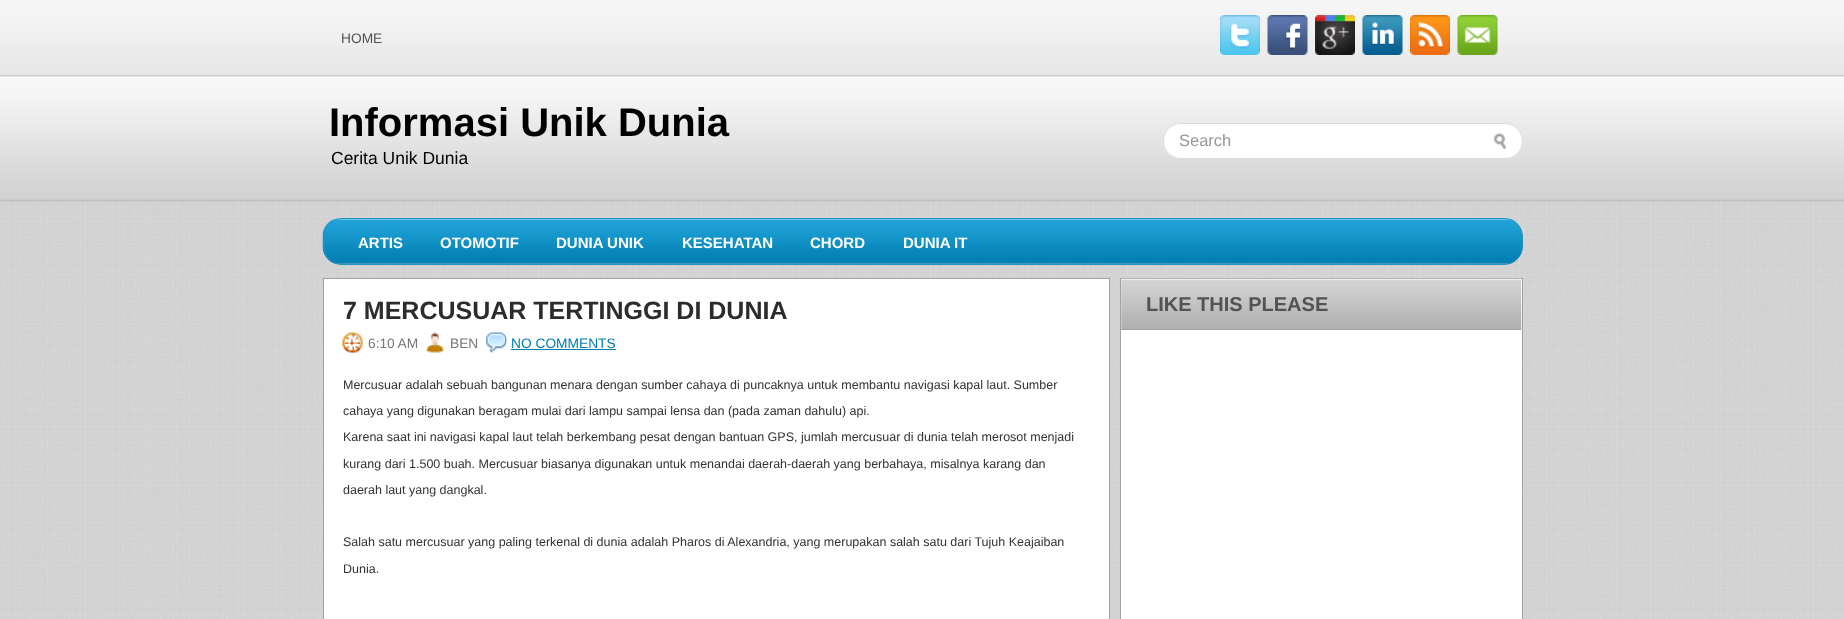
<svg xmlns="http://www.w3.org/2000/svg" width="1844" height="619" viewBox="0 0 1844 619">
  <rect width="100%" height="100%" fill="rgb(255,255,255)"/>
  <image x="0" y="201" width="1844" height="418" href="pic1.png"/>
  <image x="0" y="0" width="1844" height="202" href="pic2.png"/>
  <text x="341" y="43" font-family="Liberation Sans" font-size="13.75" fill="rgb(83,83,83)">HOME</text>
  <image x="1220" y="15" width="40" height="40" href="pic3.png"/>
  <image x="1267" y="15" width="41" height="40" href="pic4.png"/>
  <image x="1315" y="15" width="40" height="40" href="pic5.png"/>
  <image x="1362" y="15" width="41" height="40" href="pic6.png"/>
  <image x="1410" y="15" width="40" height="40" href="pic7.png"/>
  <image x="1457" y="15" width="41" height="40" href="pic8.png"/>
  <text x="329" y="136" font-family="Liberation Sans" font-size="40" font-weight="bold" fill="rgb(0,0,0)">Informasi Unik Dunia</text>
  <text x="331" y="164" font-family="Liberation Sans" font-size="17.5" fill="rgb(0,0,0)">Cerita Unik Dunia</text>
  <rect x="1163" y="123" width="360" height="36" rx="18" fill="rgb(255,255,255)"/>
  <image x="1493" y="132" width="14" height="18" href="pic9.png"/>
  <rect x="1163.5" y="123.5" width="359" height="35" rx="17.5" fill="none" stroke="rgb(216,216,216)"/>
  <text x="1179" y="146" font-family="Liberation Sans" font-size="16.5" fill="rgb(151,151,151)">Search</text>
  <image x="322" y="218" width="1201" height="46" href="pic10.png"/>
  <rect x="323.5" y="218.5" width="1199" height="46" rx="18.5" fill="none" stroke="rgb(32,146,192)"/>
  <g font-family="Liberation Sans" font-size="15" font-weight="bold" fill="rgb(255,255,255)">
    <text x="358" y="248">ARTIS</text>
    <text x="440" y="248">OTOMOTIF</text>
    <text x="556" y="248">DUNIA UNIK</text>
    <text x="682" y="248">KESEHATAN</text>
    <text x="810" y="248">CHORD</text>
    <text x="903" y="248">DUNIA IT</text>
  </g>
  <rect x="323.5" y="278.5" width="786" height="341" fill="rgb(255,255,255)" stroke="rgb(160,160,160)"/>
  <text x="343" y="319" font-family="Liberation Sans" font-size="25" font-weight="bold" fill="rgb(44,44,44)">7 MERCUSUAR TERTINGGI DI DUNIA</text>
  <image x="342" y="332" width="21" height="21" href="pic11.png"/>
  <text x="368" y="348" font-family="Liberation Sans" font-size="13.75" fill="rgb(119,119,119)">6:10 AM</text>
  <image x="426" y="332" width="18" height="21" href="pic12.png"/>
  <text x="450" y="348" font-family="Liberation Sans" font-size="13.75" fill="rgb(119,119,119)">BEN</text>
  <image x="486" y="332" width="21" height="21" href="pic13.png"/>
  <text x="511" y="348" font-family="Liberation Sans" font-size="13.75" fill="rgb(1,125,176)">NO COMMENTS</text>
  <rect x="511" y="349" width="105" height="1" fill="rgb(1,125,176)"/>
  <g font-family="Liberation Sans" font-size="12.5" fill="rgb(52,51,51)">
    <text x="343" y="389">Mercusuar adalah sebuah bangunan menara dengan sumber cahaya di puncaknya untuk membantu navigasi kapal laut. Sumber</text>
    <text x="343" y="415">cahaya yang digunakan beragam mulai dari lampu sampai lensa dan (pada zaman dahulu) api.</text>
    <text x="343" y="441">Karena saat ini navigasi kapal laut telah berkembang pesat dengan bantuan GPS, jumlah mercusuar di dunia telah merosot menjadi</text>
    <text x="343" y="468">kurang dari 1.500 buah. Mercusuar biasanya digunakan untuk menandai daerah-daerah yang berbahaya, misalnya karang dan</text>
    <text x="343" y="494">daerah laut yang dangkal.</text>
    <text x="343" y="546">Salah satu mercusuar yang paling terkenal di dunia adalah Pharos di Alexandria, yang merupakan salah satu dari Tujuh Keajaiban</text>
    <text x="343" y="573">Dunia.</text>
  </g>
  <rect x="1120.5" y="278.5" width="402" height="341" fill="rgb(255,255,255)" stroke="rgb(162,162,162)"/>
  <image x="1121" y="278" width="401" height="52" href="pic14.png"/>
  <text x="1146" y="311" font-family="Liberation Sans" font-size="20" font-weight="bold" fill="rgb(83,83,83)">LIKE THIS PLEASE</text>
</svg>
